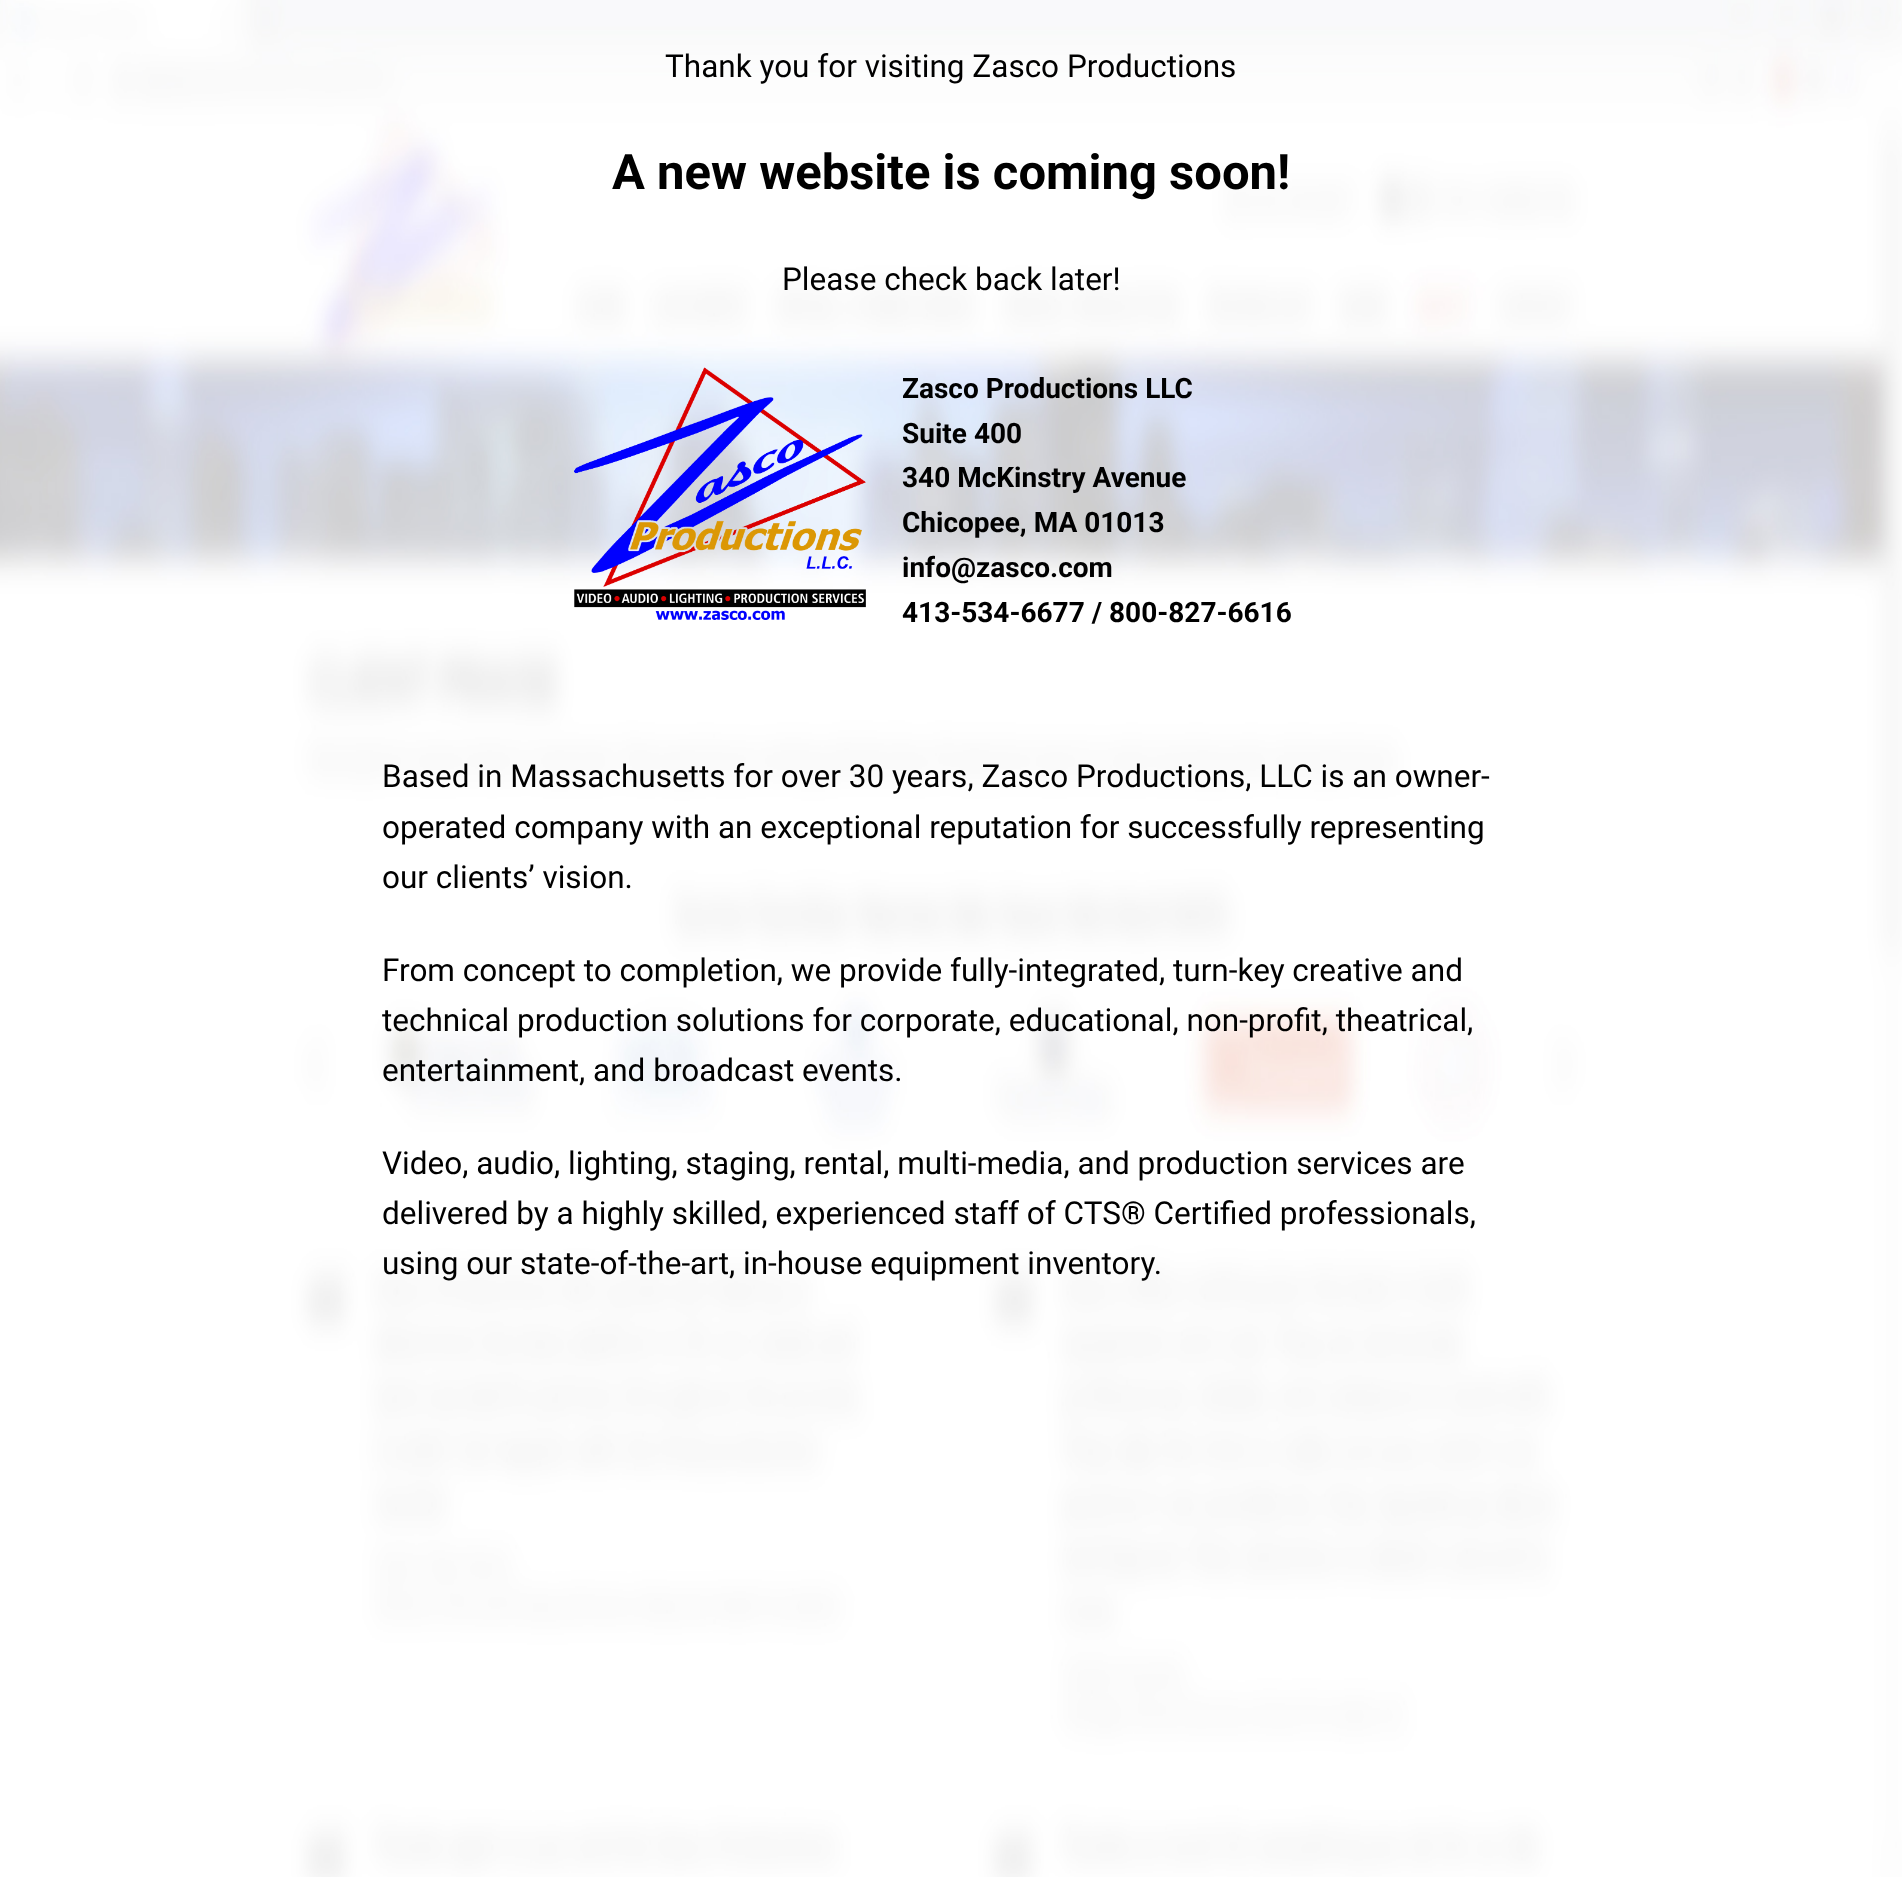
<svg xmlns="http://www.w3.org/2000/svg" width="1902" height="1877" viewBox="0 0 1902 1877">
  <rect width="100%" height="100%" fill="rgb(255,255,255)"/>
  <image x="0" y="0" width="1902" height="1877" href="pic1.png"/>
  <text x="665" y="77" font-family="Roboto" font-size="31.5" fill="rgb(0,0,0)">Thank you for visiting Zasco Productions</text>
  <text x="612" y="189" font-family="Roboto" font-size="49" font-weight="bold" fill="rgb(0,0,0)">A new website is coming soon!</text>
  <text x="782" y="290" font-family="Roboto" font-size="31.5" fill="rgb(0,0,0)">Please check back later!</text>
  <image x="574" y="367" width="292" height="253" href="pic2.png"/>
  <g font-family="Roboto" font-size="28" font-weight="bold" fill="rgb(0,0,0)">
    <text>
      <tspan x="902" y="398">Zasco Productions LLC</tspan>
      <tspan x="902" y="443">Suite 400</tspan>
      <tspan x="902" y="487">340 McKinstry Avenue</tspan>
      <tspan x="902" y="532">Chicopee, MA 01013</tspan>
      <tspan x="902" y="577">info@zasco.com</tspan>
      <tspan x="902" y="622">413-534-6677 / 800-827-6616</tspan>
    </text>
  </g>
  <g font-family="Roboto" font-size="31.5" fill="rgb(0,0,0)">
    <text>
      <tspan x="382" y="787">Based in Massachusetts for over 30 years, Zasco Productions, LLC is an owner-</tspan>
      <tspan x="382" y="838">operated company with an exceptional reputation for successfully representing</tspan>
      <tspan x="382" y="888">our clients’ vision.</tspan>
    </text>
    <text>
      <tspan x="382" y="981">From concept to completion, we provide fully-integrated, turn-key creative and</tspan>
      <tspan x="382" y="1031">technical production solutions for corporate, educational, non-profit, theatrical,</tspan>
      <tspan x="382" y="1081">entertainment, and broadcast events.</tspan>
    </text>
    <text>
      <tspan x="382" y="1174">Video, audio, lighting, staging, rental, multi-media, and production services are</tspan>
      <tspan x="382" y="1224">delivered by a highly skilled, experienced staff of CTS® Certified professionals,</tspan>
      <tspan x="382" y="1274">using our state-of-the-art, in-house equipment inventory.</tspan>
    </text>
  </g>
</svg>
